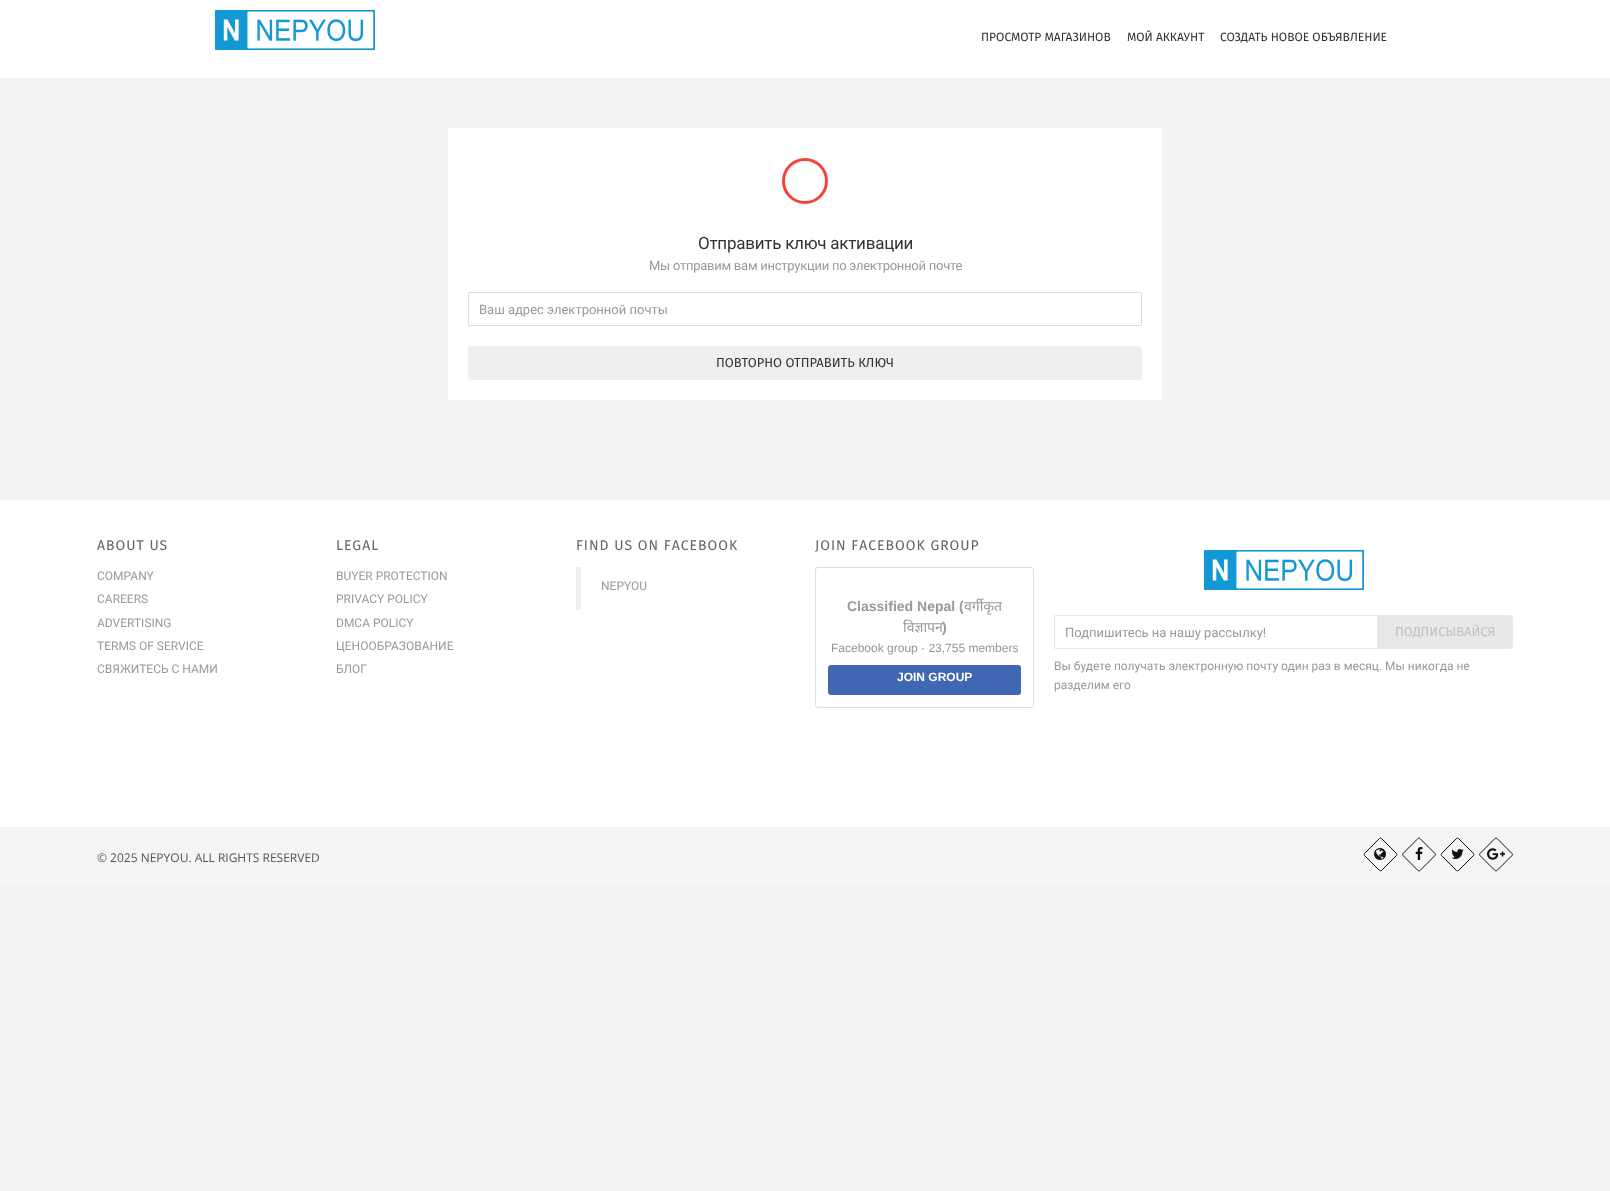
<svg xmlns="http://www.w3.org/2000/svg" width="1610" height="1191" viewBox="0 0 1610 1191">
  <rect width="100%" height="100%" fill="rgb(242,243,245)"/>
  <rect x="0" y="0" width="1610" height="78" fill="rgb(255,255,255)"/>
  <image x="215" y="10" width="160" height="40" href="pic1.png"/>
  <g font-family="Fira Sans" font-size="12" fill="rgb(51,51,51)">
    <text x="981" y="41">ПРОСМОТР МАГАЗИНОВ</text>
    <text x="1127" y="41">МОЙ АККАУНТ</text>
    <text x="1220" y="41">СОЗДАТЬ НОВОЕ ОБЪЯВЛЕНИЕ</text>
  </g>
  <rect x="448" y="128" width="714" height="272" fill="rgb(255,255,255)"/>
  <circle cx="805" cy="181" r="21.5" fill="none" stroke="rgb(244,67,54)" stroke-width="3"/>
  <text x="698" y="249" font-family="Roboto" font-size="17" letter-spacing="-0.25" fill="rgb(51,51,51)">Отправить ключ активации</text>
  <text x="649" y="270" font-family="Roboto" font-size="13" letter-spacing="-0.25" fill="rgb(153,153,153)">Мы отправим вам инструкции по электронной почте</text>
  <rect x="468.5" y="292.5" width="673" height="33" rx="0.5" fill="none" stroke="rgb(218,221,224)"/>
  <text x="479" y="314" font-family="Roboto" font-size="13" fill="rgb(153,153,153)">Ваш адрес электронной почты</text>
  <rect x="468" y="346" width="674" height="34" rx="3" fill="rgb(239,239,239)"/>
  <text x="716" y="367" font-family="Fira Sans" font-size="13" fill="rgb(51,51,51)">ПОВТОРНО ОТПРАВИТЬ КЛЮЧ</text>
  <rect x="0" y="500" width="1610" height="327" fill="rgb(255,255,255)"/>
  <text x="97" y="550" font-family="Fira Sans" font-size="14" letter-spacing="1" fill="rgb(101,101,101)">ABOUT US</text>
  <g font-family="Roboto" font-size="12" fill="rgb(153,153,153)">
    <text>
      <tspan x="97" y="580">COMPANY</tspan>
      <tspan x="97" y="603">CAREERS</tspan>
    </text>
    <text>
      <tspan x="97" y="627">ADVERTISING</tspan>
      <tspan x="97" y="650">TERMS OF SERVICE</tspan>
      <tspan x="97" y="673">СВЯЖИТЕСЬ С НАМИ</tspan>
    </text>
  </g>
  <text x="336" y="550" font-family="Fira Sans" font-size="14" letter-spacing="1" fill="rgb(101,101,101)">LEGAL</text>
  <g font-family="Roboto" font-size="12" fill="rgb(153,153,153)">
    <text>
      <tspan x="336" y="580">BUYER PROTECTION</tspan>
      <tspan x="336" y="603">PRIVACY POLICY</tspan>
    </text>
    <text>
      <tspan x="336" y="627">DMCA POLICY</tspan>
      <tspan x="336" y="650">ЦЕНООБРАЗОВАНИЕ</tspan>
      <tspan x="336" y="673">БЛОГ</tspan>
    </text>
  </g>
  <text x="576" y="550" font-family="Fira Sans" font-size="14" letter-spacing="1" fill="rgb(101,101,101)">FIND US ON FACEBOOK</text>
  <rect x="576" y="567" width="5" height="43" fill="rgb(238,238,238)"/>
  <text x="601" y="590" font-family="Roboto" font-size="12" fill="rgb(153,153,153)">NEPYOU</text>
  <text x="815" y="550" font-family="Fira Sans" font-size="14" letter-spacing="1" fill="rgb(101,101,101)">JOIN FACEBOOK GROUP</text>
  <rect x="815.5" y="567.5" width="218" height="140" rx="2.5" fill="none" stroke="rgb(221,223,226)"/>
  <text x="847" y="611" font-family="Liberation Sans" font-size="14" font-weight="bold" fill="rgb(153,153,153)">Classified Nepal (</text>
  <g font-family="Noto Sans" font-size="14" fill="rgb(153,153,153)">
    <text x="964" y="611">वर्गीकृत</text>
    <text x="903" y="632">विज्ञापन</text>
  </g>
  <text x="942" y="632" font-family="Liberation Sans" font-size="14" font-weight="bold" fill="rgb(153,153,153)">)</text>
  <text x="831" y="652" font-family="Liberation Sans" font-size="12" fill="rgb(144,148,156)">Facebook group · 23,755 members</text>
  <rect x="828" y="665" width="193" height="30" rx="3" fill="rgb(66,103,178)"/>
  <text x="897" y="681" font-family="Liberation Sans" font-size="12" font-weight="bold" fill="rgb(255,255,255)">JOIN GROUP</text>
  <image x="1204" y="550" width="160" height="40" href="pic1.png"/>
  <rect x="1054.5" y="615.5" width="323" height="33" rx="0.5" fill="none" stroke="rgb(232,232,232)"/>
  <text x="1065" y="637" font-family="Roboto" font-size="13" fill="rgb(153,153,153)">Подпишитесь на нашу рассылку!</text>
  <path d="M1377 615H1510C1511.5 615 1513 616.5 1513 618V646C1513 647.5 1511.5 649 1510 649H1377Z" fill="rgb(232,232,232)"/>
  <text x="1395" y="636" font-family="Fira Sans" font-size="13" fill="rgb(193,193,193)">ПОДПИСЫВАЙСЯ</text>
  <g font-family="Roboto" font-size="12" fill="rgb(153,153,153)">
    <text>
      <tspan x="1054" y="670">Вы будете получать электронную почту один раз в месяц. Мы никогда не</tspan>
      <tspan x="1054" y="689">разделим его</tspan>
    </text>
  </g>
  <rect x="0" y="827" width="1610" height="57" fill="rgb(245,245,245)"/>
  <text x="97" y="862" font-family="Open Sans" font-size="12" fill="rgb(84,84,84)">© 2025 NEPYOU. ALL RIGHTS RESERVED</text>
  <image x="1374" y="848" width="12" height="12" href="pic2.png"/>
  <path d="M1381.5 838.5L1396.5 853.5C1397 854 1397 855 1396.5 855.5L1381.5 870.5C1381 871 1380 871 1379.5 870.5L1364.5 855.5C1364 855 1364 854 1364.5 853.5L1379.5 838.5C1380 838 1381 838 1381.5 838.5Z" fill="none" stroke="rgb(17,17,17)"/>
  <image x="1415" y="847" width="8" height="13" href="pic3.png"/>
  <path d="M1420 838.5L1435 853.5C1435.5 854 1435.5 855 1435 855.5L1420 870.5C1419.5 871 1418.5 871 1418 870.5L1403 855.5C1402.5 855 1402.5 854 1403 853.5L1418 838.5C1418.5 838 1419.5 838 1420 838.5Z" fill="none" stroke="rgb(17,17,17)"/>
  <image x="1451" y="849" width="13" height="10" href="pic4.png"/>
  <path d="M1458.5 838.5L1473.5 853.5C1474 854 1474 855 1473.5 855.5L1458.5 870.5C1458 871 1457 871 1456.5 870.5L1441.5 855.5C1441 855 1441 854 1441.5 853.5L1456.5 838.5C1457 838 1458 838 1458.5 838.5Z" fill="none" stroke="rgb(17,17,17)"/>
  <image x="1487" y="848" width="18" height="12" href="pic5.png"/>
  <path d="M1497 838.5L1512 853.5C1512.5 854 1512.5 855 1512 855.5L1497 870.5C1496.5 871 1495.5 871 1495 870.5L1480 855.5C1479.5 855 1479.5 854 1480 853.5L1495 838.5C1495.5 838 1496.5 838 1497 838.5Z" fill="none" stroke="rgb(17,17,17)"/>
</svg>
